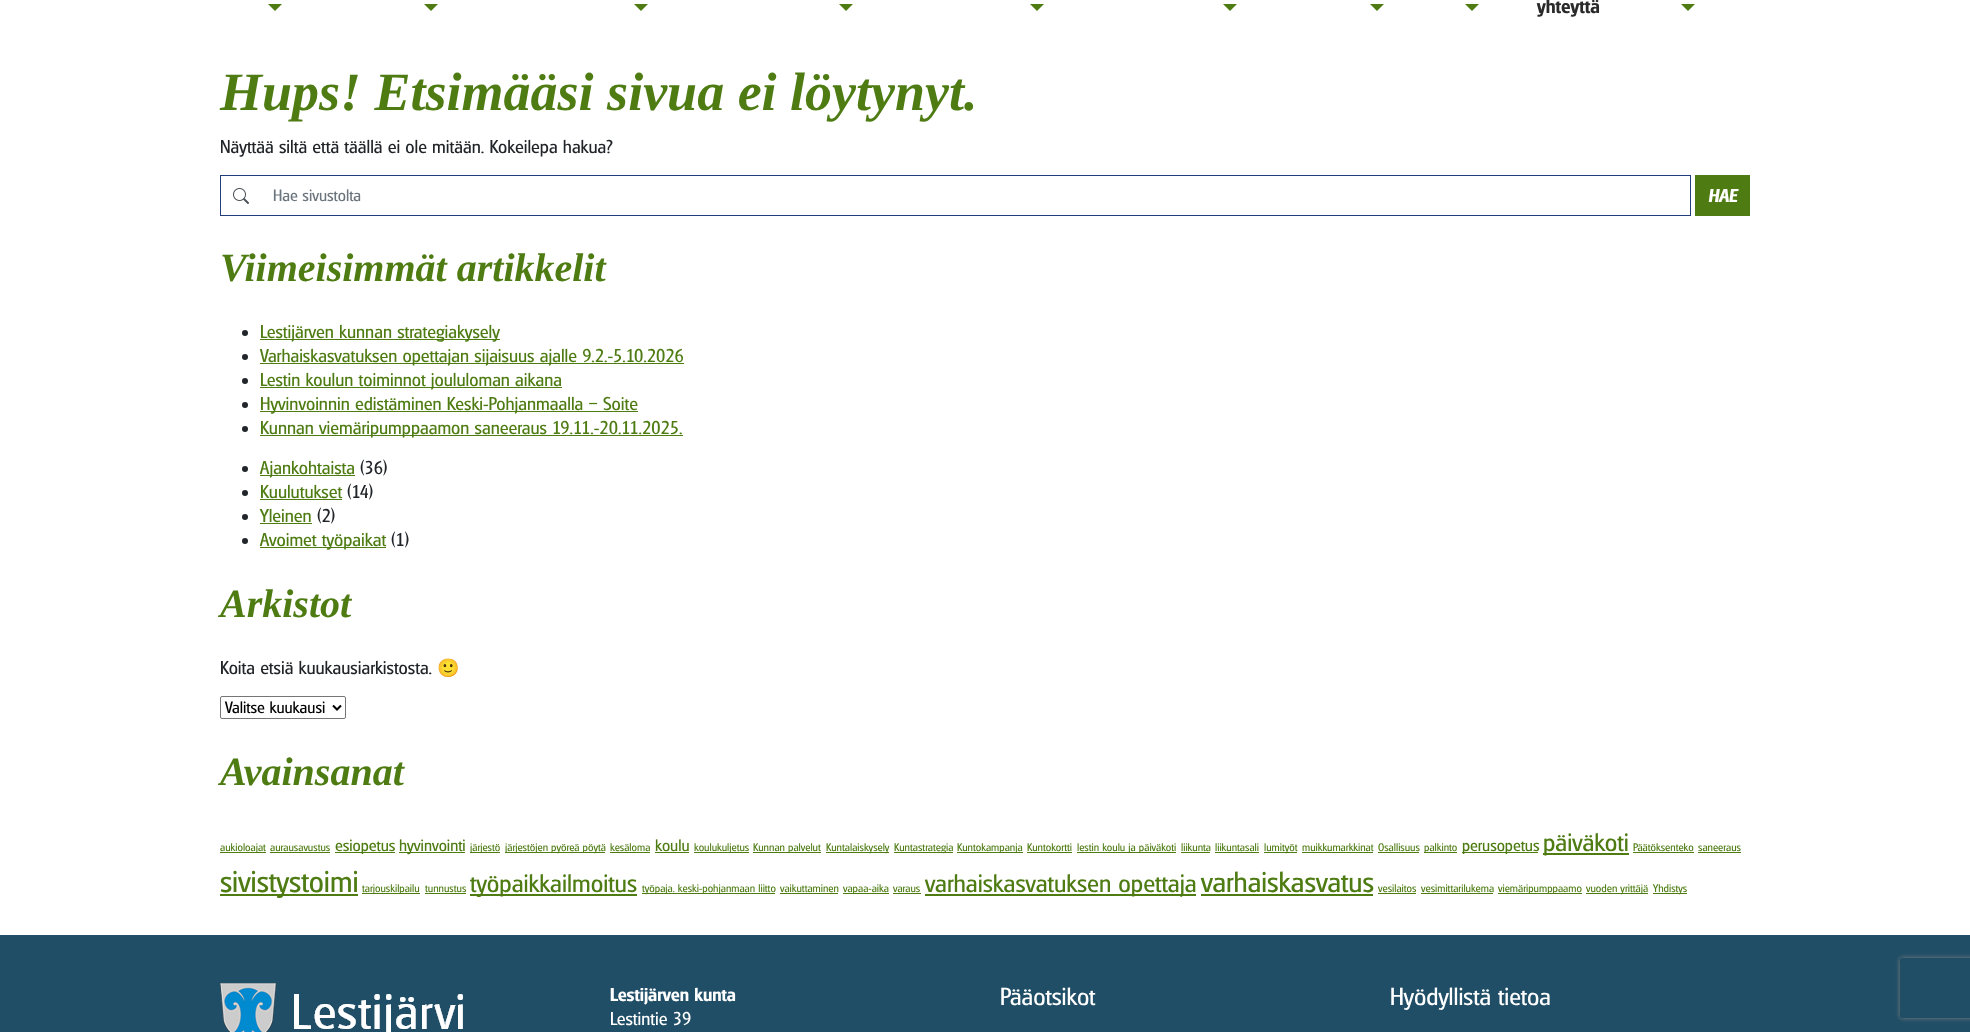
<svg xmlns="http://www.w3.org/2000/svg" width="1970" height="1032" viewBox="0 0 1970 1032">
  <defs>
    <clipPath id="clip1"><path d="M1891 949H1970V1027H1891ZM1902 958H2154C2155 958 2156 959 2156 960V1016C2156 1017 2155 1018 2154 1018H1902C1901 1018 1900 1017 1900 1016V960C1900 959 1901 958 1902 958Z" clip-rule="evenodd"/></clipPath>
  </defs>
  <rect width="100%" height="100%" fill="rgb(255,255,255)"/>
  <path d="M268 4H282L275 11Z" fill="rgb(78,124,19)"/>
  <path d="M424 4H438L431 11Z" fill="rgb(78,124,19)"/>
  <path d="M634 4H648L641 11Z" fill="rgb(78,124,19)"/>
  <path d="M839 4H853L846 11Z" fill="rgb(78,124,19)"/>
  <path d="M1030 4H1044L1037 11Z" fill="rgb(78,124,19)"/>
  <path d="M1223 4H1237L1230 11Z" fill="rgb(78,124,19)"/>
  <path d="M1370 4H1384L1377 11Z" fill="rgb(78,124,19)"/>
  <path d="M1465 4H1479L1472 11Z" fill="rgb(78,124,19)"/>
  <text x="1537" y="13" font-family="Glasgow" font-size="19" font-weight="bold" fill="rgb(42,42,42)">yhteyttä</text>
  <path d="M1681 4H1695L1688 11Z" fill="rgb(78,124,19)"/>
  <text x="220" y="110" font-family="Tinos" font-size="54" font-weight="bold" font-style="italic" fill="rgb(78,124,19)">Hups! Etsimääsi sivua ei löytynyt.</text>
  <text x="220" y="153" font-family="Glasgow" font-size="18" fill="rgb(33,37,41)">Näyttää siltä että täällä ei ole mitään. Kokeilepa hakua?</text>
  <rect x="220.5" y="175.5" width="41" height="40" fill="none" stroke="rgb(33,62,122)"/>
  <image x="233" y="188" width="16" height="16" href="pic1.png"/>
  <rect x="261" y="176" width="1" height="39" fill="rgb(255,255,255)"/>
  <rect x="261" y="175" width="1430" height="1" fill="rgb(33,62,122)"/>
  <rect x="1690" y="175" width="1" height="41" fill="rgb(33,62,122)"/>
  <rect x="261" y="215" width="1430" height="1" fill="rgb(33,62,122)"/>
  <text x="273" y="201" font-family="Glasgow" font-size="16" fill="rgb(108,117,125)">Hae sivustolta</text>
  <rect x="1695" y="175" width="55" height="41" fill="rgb(78,124,19)"/>
  <text x="1708" y="202" font-family="Glasgow" font-size="18" font-weight="bold" font-style="italic" fill="rgb(255,255,255)">HAE</text>
  <text x="220" y="281" font-family="Tinos" font-size="40" font-weight="bold" font-style="italic" fill="rgb(78,124,19)">Viimeisimmät artikkelit</text>
  <circle cx="245" cy="333" r="3" fill="rgb(33,37,41)"/>
  <rect x="260" y="339" width="240" height="1" fill="rgb(78,124,19)"/>
  <text x="260" y="338" font-family="Glasgow" font-size="18" fill="rgb(78,124,19)">Lestijärven kunnan strategiakysely</text>
  <circle cx="245" cy="357" r="3" fill="rgb(33,37,41)"/>
  <rect x="260" y="363" width="424" height="1" fill="rgb(78,124,19)"/>
  <text x="260" y="362" font-family="Glasgow" font-size="18" fill="rgb(78,124,19)">Varhaiskasvatuksen opettajan sijaisuus ajalle 9.2.-5.10.2026</text>
  <circle cx="245" cy="381" r="3" fill="rgb(33,37,41)"/>
  <rect x="260" y="387" width="302" height="1" fill="rgb(78,124,19)"/>
  <text x="260" y="386" font-family="Glasgow" font-size="18" fill="rgb(78,124,19)">Lestin koulun toiminnot joululoman aikana</text>
  <circle cx="245" cy="405" r="3" fill="rgb(33,37,41)"/>
  <rect x="260" y="411" width="378" height="1" fill="rgb(78,124,19)"/>
  <text x="260" y="410" font-family="Glasgow" font-size="18" fill="rgb(78,124,19)">Hyvinvoinnin edistäminen Keski-Pohjanmaalla – Soite</text>
  <circle cx="245" cy="429" r="3" fill="rgb(33,37,41)"/>
  <rect x="260" y="435" width="423" height="1" fill="rgb(78,124,19)"/>
  <text x="260" y="434" font-family="Glasgow" font-size="18" fill="rgb(78,124,19)">Kunnan viemäripumppaamon saneeraus 19.11.-20.11.2025.</text>
  <circle cx="245" cy="469" r="3" fill="rgb(33,37,41)"/>
  <rect x="260" y="475" width="95" height="1" fill="rgb(78,124,19)"/>
  <text x="260" y="474" font-family="Glasgow" font-size="18" fill="rgb(78,124,19)">Ajankohtaista</text>
  <text x="360" y="474" font-family="Glasgow" font-size="18" fill="rgb(33,37,41)">(36)</text>
  <circle cx="245" cy="493" r="3" fill="rgb(33,37,41)"/>
  <text x="260" y="498" font-family="Glasgow" font-size="18" fill="rgb(78,124,19)">Kuulutukset</text>
  <rect x="260" y="499" width="82" height="1" fill="rgb(78,124,19)"/>
  <text x="347" y="498" font-family="Glasgow" font-size="18" fill="rgb(33,37,41)">(14)</text>
  <circle cx="245" cy="517" r="3" fill="rgb(33,37,41)"/>
  <text x="260" y="522" font-family="Glasgow" font-size="18" fill="rgb(78,124,19)">Yleinen</text>
  <rect x="260" y="523" width="52" height="1" fill="rgb(78,124,19)"/>
  <text x="317" y="522" font-family="Glasgow" font-size="18" fill="rgb(33,37,41)">(2)</text>
  <circle cx="245" cy="541" r="3" fill="rgb(33,37,41)"/>
  <rect x="260" y="547" width="126" height="1" fill="rgb(78,124,19)"/>
  <text x="260" y="546" font-family="Glasgow" font-size="18" fill="rgb(78,124,19)">Avoimet työpaikat</text>
  <text x="391" y="546" font-family="Glasgow" font-size="18" fill="rgb(33,37,41)">(1)</text>
  <text x="220" y="617" font-family="Tinos" font-size="40" font-weight="bold" font-style="italic" fill="rgb(78,124,19)">Arkistot</text>
  <text x="220" y="674" font-family="Glasgow" font-size="18" fill="rgb(33,37,41)">Koita etsiä kuukausiarkistosta.</text>
  <text x="437" y="674" font-family="Noto Color Emoji" font-size="18" fill="rgb(33,37,41)">🙂</text>
  <rect x="220.5" y="696.5" width="125" height="22" rx="1.5" fill="none" stroke="rgb(118,118,118)"/>
  <path d="M333 705.5L337 709.5L341 705.5" fill="none" stroke="rgb(0,0,0)" stroke-width="2"/>
  <text x="225" y="713" font-family="Glasgow" font-size="16" fill="rgb(0,0,0)">Valitse kuukausi</text>
  <text x="220" y="785" font-family="Tinos" font-size="40" font-weight="bold" font-style="italic" fill="rgb(78,124,19)">Avainsanat</text>
  <rect x="220" y="852" width="46" height="1" fill="rgb(78,124,19)"/>
  <g font-family="Glasgow" font-size="10.7" fill="rgb(78,124,19)">
    <text x="220" y="851">aukioloajat</text>
    <text x="270" y="851">aurausavustus</text>
  </g>
  <rect x="270" y="852" width="60" height="1" fill="rgb(78,124,19)"/>
  <rect x="335" y="852" width="60" height="1" fill="rgb(78,124,19)"/>
  <text x="335" y="851" font-family="Glasgow" font-size="16" fill="rgb(78,124,19)">esiopetus</text>
  <rect x="399" y="852" width="66" height="1" fill="rgb(78,124,19)"/>
  <text x="399" y="851" font-family="Glasgow" font-size="16" fill="rgb(78,124,19)">hyvinvointi</text>
  <rect x="470" y="852" width="30" height="1" fill="rgb(78,124,19)"/>
  <text x="470" y="851" font-family="Glasgow" font-size="10.7" fill="rgb(78,124,19)">järjestö</text>
  <rect x="505" y="852" width="100" height="1" fill="rgb(78,124,19)"/>
  <g font-family="Glasgow" font-size="10.7" fill="rgb(78,124,19)">
    <text x="505" y="851">järjestöjen pyöreä pöytä</text>
    <text x="610" y="851">kesäloma</text>
  </g>
  <rect x="610" y="852" width="40" height="1" fill="rgb(78,124,19)"/>
  <text x="655" y="851" font-family="Glasgow" font-size="16" fill="rgb(78,124,19)">koulu</text>
  <rect x="655" y="852" width="34" height="1" fill="rgb(78,124,19)"/>
  <rect x="694" y="852" width="55" height="1" fill="rgb(78,124,19)"/>
  <text x="694" y="851" font-family="Glasgow" font-size="10.7" fill="rgb(78,124,19)">koulukuljetus</text>
  <rect x="753" y="852" width="68" height="1" fill="rgb(78,124,19)"/>
  <text x="753" y="851" font-family="Glasgow" font-size="10.7" fill="rgb(78,124,19)">Kunnan palvelut</text>
  <rect x="826" y="852" width="63" height="1" fill="rgb(78,124,19)"/>
  <text x="826" y="851" font-family="Glasgow" font-size="10.7" fill="rgb(78,124,19)">Kuntalaiskysely</text>
  <rect x="894" y="852" width="59" height="1" fill="rgb(78,124,19)"/>
  <text x="894" y="851" font-family="Glasgow" font-size="10.7" fill="rgb(78,124,19)">Kuntastrategia</text>
  <rect x="957" y="852" width="66" height="1" fill="rgb(78,124,19)"/>
  <g font-family="Glasgow" font-size="10.7" fill="rgb(78,124,19)">
    <text x="957" y="851">Kuntokampanja</text>
    <text x="1027" y="851">Kuntokortti</text>
  </g>
  <rect x="1027" y="852" width="45" height="1" fill="rgb(78,124,19)"/>
  <rect x="1077" y="852" width="99" height="1" fill="rgb(78,124,19)"/>
  <g font-family="Glasgow" font-size="10.7" fill="rgb(78,124,19)">
    <text x="1077" y="851">lestin koulu ja päiväkoti</text>
    <text x="1181" y="851">liikunta</text>
  </g>
  <rect x="1181" y="852" width="29" height="1" fill="rgb(78,124,19)"/>
  <text x="1215" y="851" font-family="Glasgow" font-size="10.7" fill="rgb(78,124,19)">liikuntasali</text>
  <rect x="1215" y="852" width="44" height="1" fill="rgb(78,124,19)"/>
  <rect x="1264" y="852" width="33" height="1" fill="rgb(78,124,19)"/>
  <g font-family="Glasgow" font-size="10.7" fill="rgb(78,124,19)">
    <text x="1264" y="851">lumityöt</text>
    <text x="1302" y="851">muikkumarkkinat</text>
  </g>
  <rect x="1302" y="852" width="71" height="1" fill="rgb(78,124,19)"/>
  <text x="1378" y="851" font-family="Glasgow" font-size="10.7" fill="rgb(78,124,19)">Osallisuus</text>
  <rect x="1378" y="852" width="41" height="1" fill="rgb(78,124,19)"/>
  <rect x="1424" y="852" width="33" height="1" fill="rgb(78,124,19)"/>
  <text x="1424" y="851" font-family="Glasgow" font-size="10.7" fill="rgb(78,124,19)">palkinto</text>
  <rect x="1462" y="852" width="76" height="1" fill="rgb(78,124,19)"/>
  <text x="1462" y="851" font-family="Glasgow" font-size="16" fill="rgb(78,124,19)">perusopetus</text>
  <rect x="1543" y="853" width="86" height="2" fill="rgb(78,124,19)"/>
  <text x="1543" y="851" font-family="Glasgow" font-size="24.5" fill="rgb(78,124,19)">päiväkoti</text>
  <text x="1633" y="851" font-family="Glasgow" font-size="10.7" fill="rgb(78,124,19)">Päätöksenteko</text>
  <rect x="1633" y="852" width="61" height="1" fill="rgb(78,124,19)"/>
  <text x="1698" y="851" font-family="Glasgow" font-size="10.7" fill="rgb(78,124,19)">saneeraus</text>
  <rect x="1698" y="852" width="43" height="1" fill="rgb(78,124,19)"/>
  <rect x="220" y="894" width="138" height="2" fill="rgb(78,124,19)"/>
  <text x="220" y="892" font-family="Glasgow" font-size="29.5" fill="rgb(78,124,19)">sivistystoimi</text>
  <rect x="362" y="893" width="58" height="1" fill="rgb(78,124,19)"/>
  <g font-family="Glasgow" font-size="10.7" fill="rgb(78,124,19)">
    <text x="362" y="892">tarjouskilpailu</text>
    <text x="425" y="892">tunnustus</text>
  </g>
  <rect x="425" y="893" width="41" height="1" fill="rgb(78,124,19)"/>
  <rect x="470" y="894" width="167" height="2" fill="rgb(78,124,19)"/>
  <text x="470" y="892" font-family="Glasgow" font-size="24.5" fill="rgb(78,124,19)">työpaikkailmoitus</text>
  <rect x="642" y="893" width="133" height="1" fill="rgb(78,124,19)"/>
  <g font-family="Glasgow" font-size="10.7" fill="rgb(78,124,19)">
    <text x="642" y="892">työpaja. keski-pohjanmaan liitto</text>
    <text x="780" y="892">vaikuttaminen</text>
  </g>
  <rect x="780" y="893" width="58" height="1" fill="rgb(78,124,19)"/>
  <rect x="843" y="893" width="46" height="1" fill="rgb(78,124,19)"/>
  <g font-family="Glasgow" font-size="10.7" fill="rgb(78,124,19)">
    <text x="843" y="892">vapaa-aika</text>
    <text x="893" y="892">varaus</text>
  </g>
  <rect x="893" y="893" width="28" height="1" fill="rgb(78,124,19)"/>
  <rect x="925" y="894" width="271" height="2" fill="rgb(78,124,19)"/>
  <text x="925" y="892" font-family="Glasgow" font-size="24.5" fill="rgb(78,124,19)">varhaiskasvatuksen opettaja</text>
  <text x="1201" y="892" font-family="Glasgow" font-size="28" fill="rgb(78,124,19)">varhaiskasvatus</text>
  <rect x="1201" y="894" width="172" height="2" fill="rgb(78,124,19)"/>
  <text x="1378" y="892" font-family="Glasgow" font-size="10.7" fill="rgb(78,124,19)">vesilaitos</text>
  <rect x="1378" y="893" width="38" height="1" fill="rgb(78,124,19)"/>
  <text x="1421" y="892" font-family="Glasgow" font-size="10.7" fill="rgb(78,124,19)">vesimittarilukema</text>
  <rect x="1421" y="893" width="72" height="1" fill="rgb(78,124,19)"/>
  <rect x="1498" y="893" width="84" height="1" fill="rgb(78,124,19)"/>
  <text x="1498" y="892" font-family="Glasgow" font-size="10.7" fill="rgb(78,124,19)">viemäripumppaamo</text>
  <rect x="1586" y="893" width="62" height="1" fill="rgb(78,124,19)"/>
  <text x="1586" y="892" font-family="Glasgow" font-size="10.7" fill="rgb(78,124,19)">vuoden yrittäjä</text>
  <rect x="1653" y="893" width="34" height="1" fill="rgb(78,124,19)"/>
  <text x="1653" y="892" font-family="Glasgow" font-size="10.7" fill="rgb(78,124,19)">Yhdistys</text>
  <rect x="0" y="935" width="1970" height="97" fill="rgb(32,78,102)"/>
  <image x="220" y="983" width="243" height="49" href="pic2.png"/>
  <text x="610" y="1001" font-family="Glasgow" font-size="18" font-weight="bold" fill="rgb(255,255,255)">Lestijärven kunta</text>
  <text x="610" y="1025" font-family="Glasgow" font-size="18" fill="rgb(255,255,255)">Lestintie 39</text>
  <g font-family="Glasgow" font-size="24" fill="rgb(255,255,255)">
    <text x="1000" y="1005">Pääotsikot</text>
    <text x="1390" y="1005">Hyödyllistä tietoa</text>
  </g>
  <g clip-path="url(#clip1)">
    <rect x="1900" y="958" width="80" height="60" rx="2" fill="rgb(128,128,128)" filter="blur(2.5px)"/>
  </g>
</svg>
